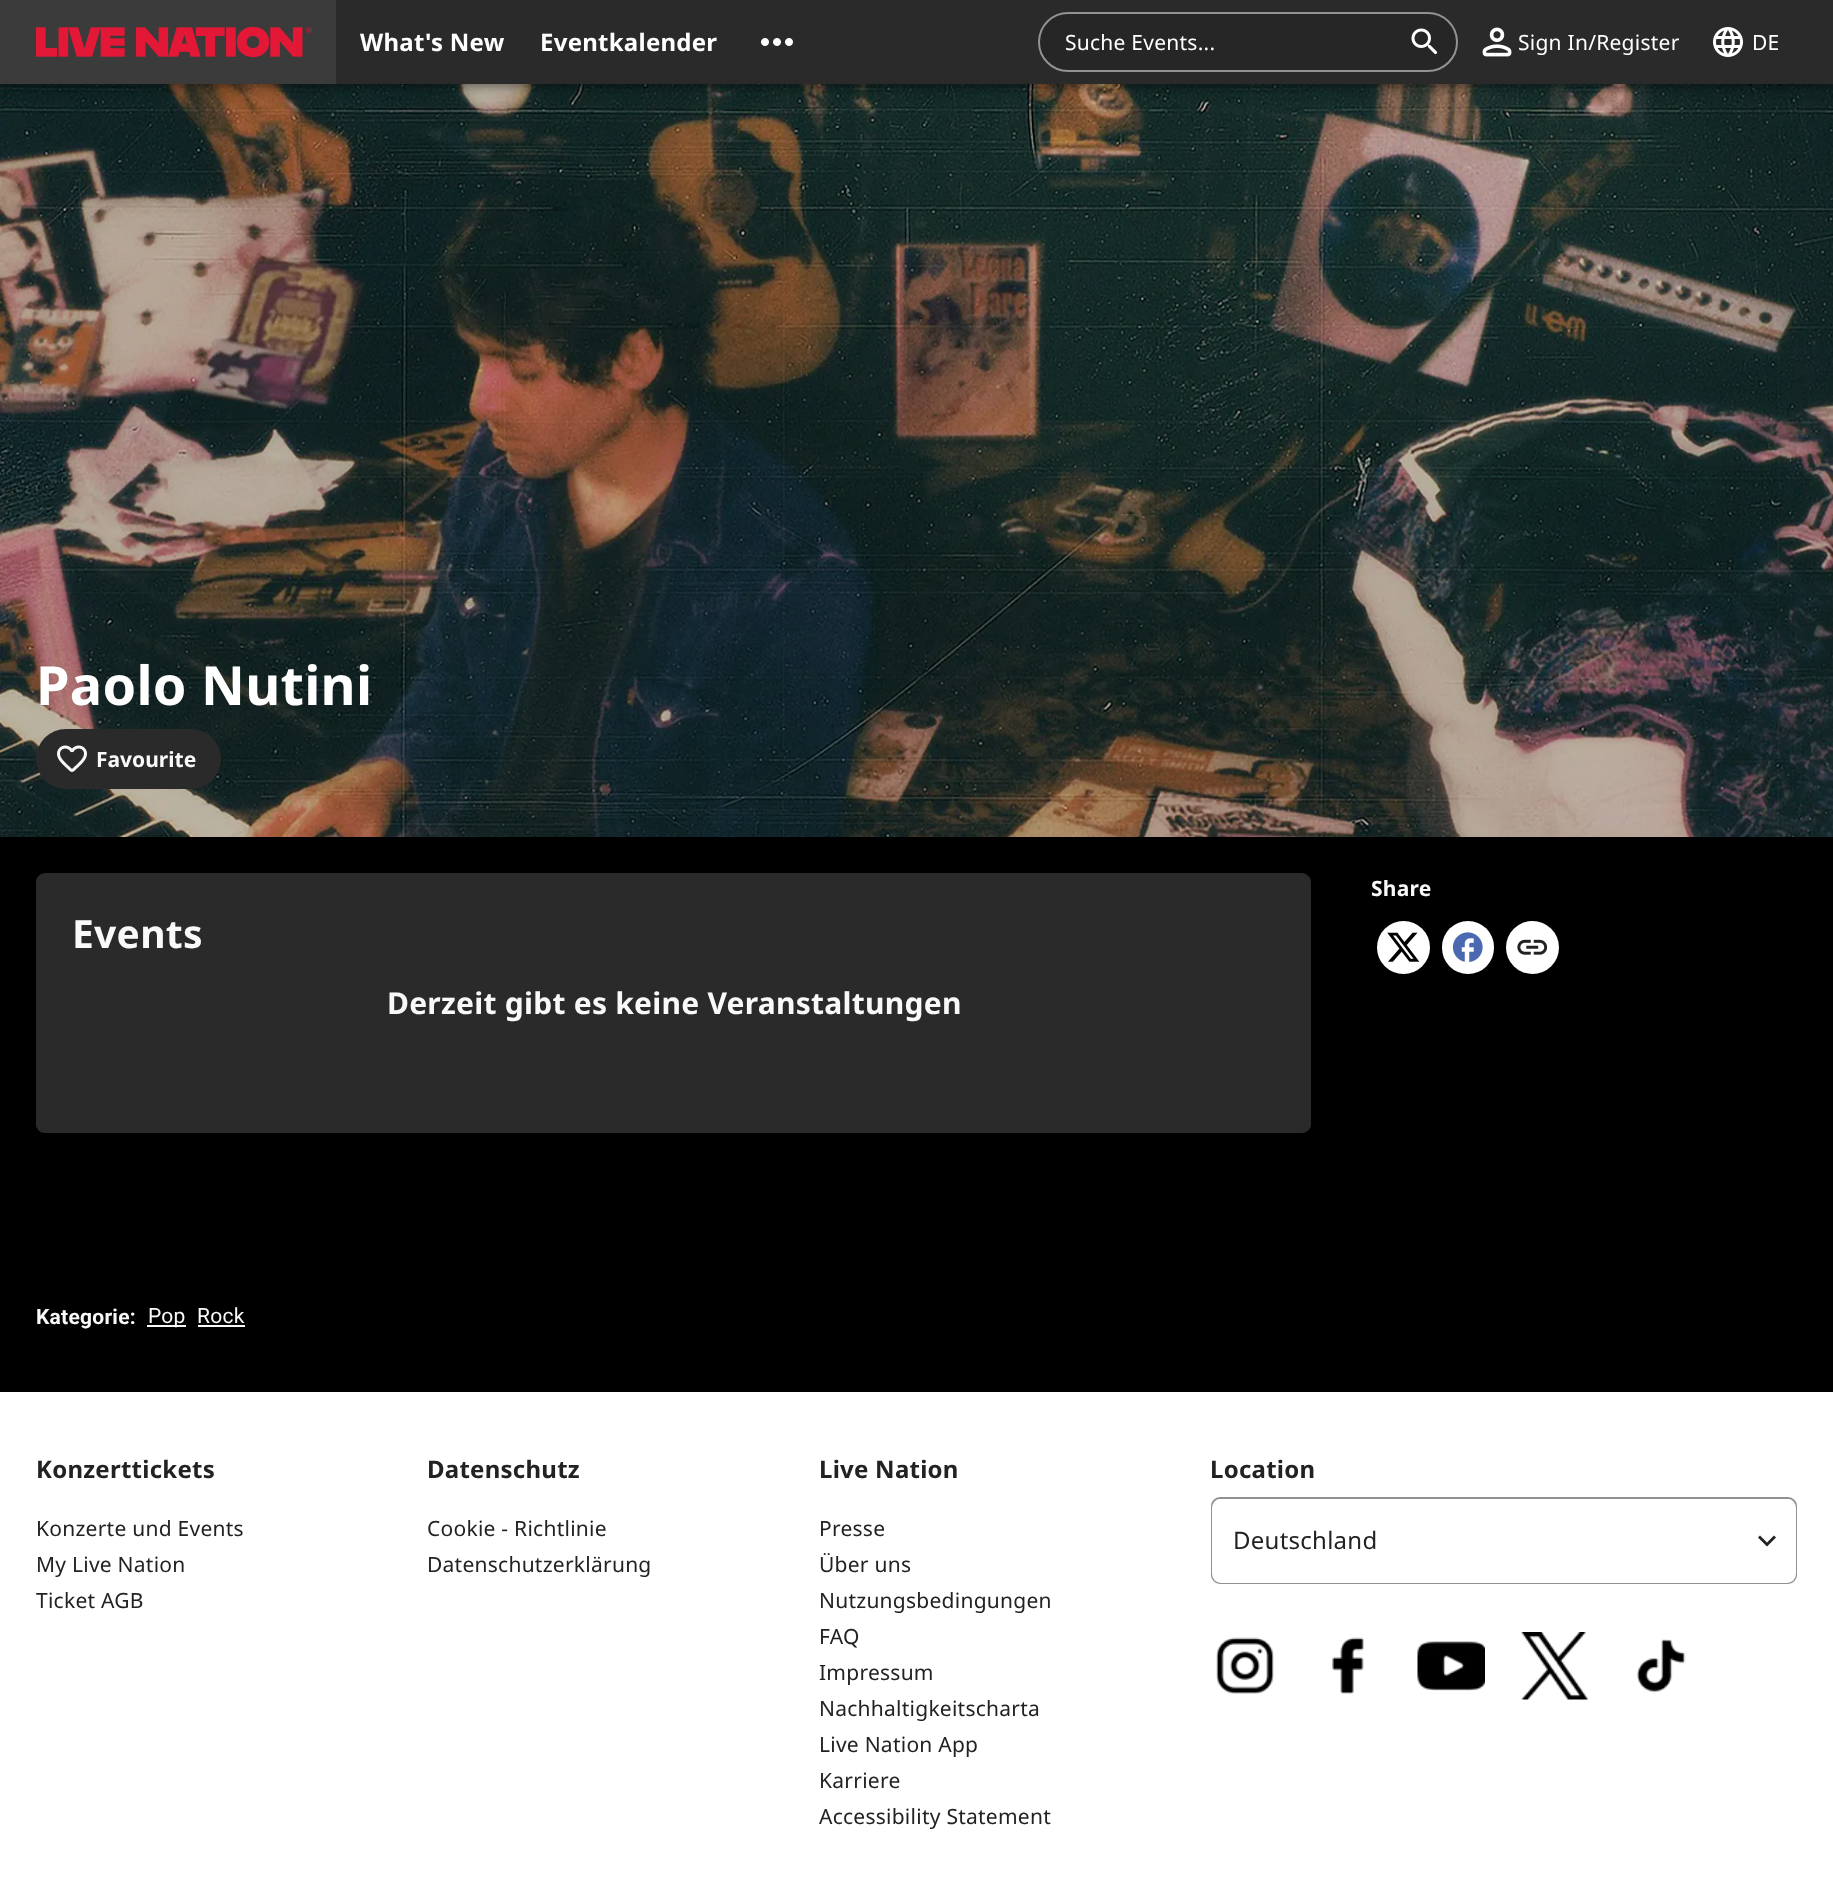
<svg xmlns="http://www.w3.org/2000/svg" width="1833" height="1877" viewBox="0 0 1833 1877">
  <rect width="100%" height="100%" fill="rgb(0,0,0)"/>
  <image x="0" y="84" width="1833" height="753" href="pic6.png"/>
  <rect x="0" y="2" width="1833" height="84" fill="rgba(0,0,0,0.12)" filter="blur(7.5px)"/>
  <rect x="0" y="6" width="1833" height="84" fill="rgba(0,0,0,0.14)" filter="blur(4px)"/>
  <rect x="2" y="5" width="1830" height="81" fill="rgba(0,0,0,0.2)" filter="blur(3px)"/>
  <rect x="336" y="0" width="1497" height="84" fill="rgb(42,42,42)"/>
  <rect x="0" y="0" width="336" height="84" fill="rgb(59,59,59)"/>
  <image x="36" y="26" width="276" height="32" href="pic1.png"/>
  <g font-family="Noto Sans" font-size="24" font-weight="bold" letter-spacing="0.25" fill="rgb(255,255,255)">
    <text x="360" y="51">What's New</text>
    <text x="540" y="51">Eventkalender</text>
  </g>
  <image x="761" y="38" width="32" height="8" href="pic2.png"/>
  <rect x="1039" y="13" width="418" height="58" rx="29" fill="rgb(38,38,38)" stroke="rgb(147,147,147)" stroke-width="2"/>
  <text x="1065" y="50" font-family="Noto Sans" font-size="21" letter-spacing="0.25" fill="rgb(255,255,255)">Suche Events...</text>
  <image x="1411" y="28" width="27" height="27" href="pic3.png"/>
  <image x="1482" y="27" width="30" height="30" href="pic4.png"/>
  <text x="1518" y="50" font-family="Noto Sans" font-size="21" letter-spacing="0.25" fill="rgb(255,255,255)">Sign In/Register</text>
  <image x="1713" y="27" width="30" height="30" href="pic5.png"/>
  <text x="1752" y="50" font-family="Noto Sans" font-size="21" letter-spacing="0.25" fill="rgb(255,255,255)">DE</text>
  <text x="36" y="705" font-family="Noto Sans" font-size="54" font-weight="bold" letter-spacing="0.25" fill="rgb(255,255,255)">Paolo Nutini</text>
  <rect x="36" y="729" width="185" height="60" rx="30" fill="rgb(42,42,42)"/>
  <image x="57" y="745" width="30" height="27" href="pic7.png"/>
  <text x="96" y="767" font-family="Noto Sans" font-size="21" font-weight="bold" fill="rgb(249,249,249)">Favourite</text>
  <text x="1371" y="896" font-family="Noto Sans" font-size="21" font-weight="bold" letter-spacing="0.25" fill="rgb(249,249,249)">Share</text>
  <circle cx="1403.5" cy="947.5" r="26.5" fill="rgb(255,255,255)"/>
  <image x="1387" y="932" width="33" height="30" href="pic8.png"/>
  <rect x="1442" y="921" width="52" height="53" rx="26" fill="rgb(255,255,255)"/>
  <image x="1452" y="932" width="31" height="30" href="pic9.png"/>
  <circle cx="1532.5" cy="947.5" r="26.5" fill="rgb(255,255,255)"/>
  <image x="1517" y="939" width="31" height="16" href="pic10.png"/>
  <rect x="36" y="873" width="1275" height="260" rx="9" fill="rgb(42,42,42)"/>
  <text x="72" y="948" font-family="Noto Sans" font-size="39" font-weight="bold" letter-spacing="0.25" fill="rgb(249,249,249)">Events</text>
  <rect x="36" y="981" width="1275" height="152" rx="9" fill="rgb(42,42,42)"/>
  <text x="387" y="1014" font-family="Noto Sans" font-size="30" font-weight="bold" letter-spacing="0.25" fill="rgb(249,249,249)">Derzeit gibt es keine Veranstaltungen</text>
  <text x="36" y="1324" font-family="Roboto" font-size="21" font-weight="bold" letter-spacing="0.25" fill="rgb(249,249,249)">Kategorie:</text>
  <rect x="147" y="1325" width="39" height="2" fill="rgb(249,249,249)"/>
  <g font-family="Roboto" font-size="21" letter-spacing="0.25" fill="rgb(249,249,249)">
    <text x="148" y="1323">Pop</text>
    <text x="197" y="1323">Rock</text>
  </g>
  <rect x="198" y="1325" width="47" height="2" fill="rgb(249,249,249)"/>
  <rect x="0" y="1392" width="1833" height="485" fill="rgb(255,255,255)"/>
  <text x="36" y="1478" font-family="Noto Sans" font-size="24" font-weight="bold" letter-spacing="0.25" fill="rgb(34,34,34)">Konzerttickets</text>
  <g font-family="Noto Sans" font-size="21" letter-spacing="0.25" fill="rgb(34,34,34)">
    <text>
      <tspan x="36" y="1536">Konzerte und Events</tspan>
      <tspan x="36" y="1572">My Live Nation</tspan>
      <tspan x="36" y="1608">Ticket AGB</tspan>
    </text>
  </g>
  <text x="427" y="1478" font-family="Noto Sans" font-size="24" font-weight="bold" letter-spacing="0.25" fill="rgb(34,34,34)">Datenschutz</text>
  <g font-family="Noto Sans" font-size="21" letter-spacing="0.25" fill="rgb(34,34,34)">
    <text>
      <tspan x="427" y="1536">Cookie - Richtlinie</tspan>
      <tspan x="427" y="1572">Datenschutzerklärung</tspan>
    </text>
  </g>
  <text x="819" y="1478" font-family="Noto Sans" font-size="24" font-weight="bold" letter-spacing="0.25" fill="rgb(34,34,34)">Live Nation</text>
  <g font-family="Noto Sans" font-size="21" letter-spacing="0.25" fill="rgb(34,34,34)">
    <text>
      <tspan x="819" y="1536">Presse</tspan>
      <tspan x="819" y="1572">Über uns</tspan>
      <tspan x="819" y="1608">Nutzungsbedingungen</tspan>
      <tspan x="819" y="1644">FAQ</tspan>
      <tspan x="819" y="1680">Impressum</tspan>
      <tspan x="819" y="1716">Nachhaltigkeitscharta</tspan>
      <tspan x="819" y="1752">Live Nation App</tspan>
      <tspan x="819" y="1788">Karriere</tspan>
      <tspan x="819" y="1824">Accessibility Statement</tspan>
    </text>
  </g>
  <text x="1210" y="1478" font-family="Noto Sans" font-size="24" font-weight="bold" letter-spacing="0.25" fill="rgb(34,34,34)">Location</text>
  <rect x="1212" y="1498" width="584" height="85" rx="8" fill="none" stroke="rgb(145,145,145)" stroke-width="2"/>
  <rect x="1212" y="1499" width="584" height="84" rx="9" fill="rgb(255,255,255)"/>
  <text x="1233" y="1549" font-family="Noto Sans" font-size="24" letter-spacing="0.25" fill="rgb(34,34,34)">Deutschland</text>
  <path d="M1760 1535.5L1767 1542.5L1774 1535.5L1776 1537.5L1767 1546.5L1758 1537.5Z" fill="rgb(34,34,34)"/>
  <image x="1216" y="1637" width="58" height="57" href="pic11.png"/>
  <image x="1332" y="1637" width="32" height="57" href="pic12.png"/>
  <image x="1417" y="1641" width="68" height="50" href="pic13.png"/>
  <image x="1521" y="1632" width="68" height="68" href="pic14.png"/>
  <image x="1637" y="1639" width="49" height="54" href="pic15.png"/>
</svg>
